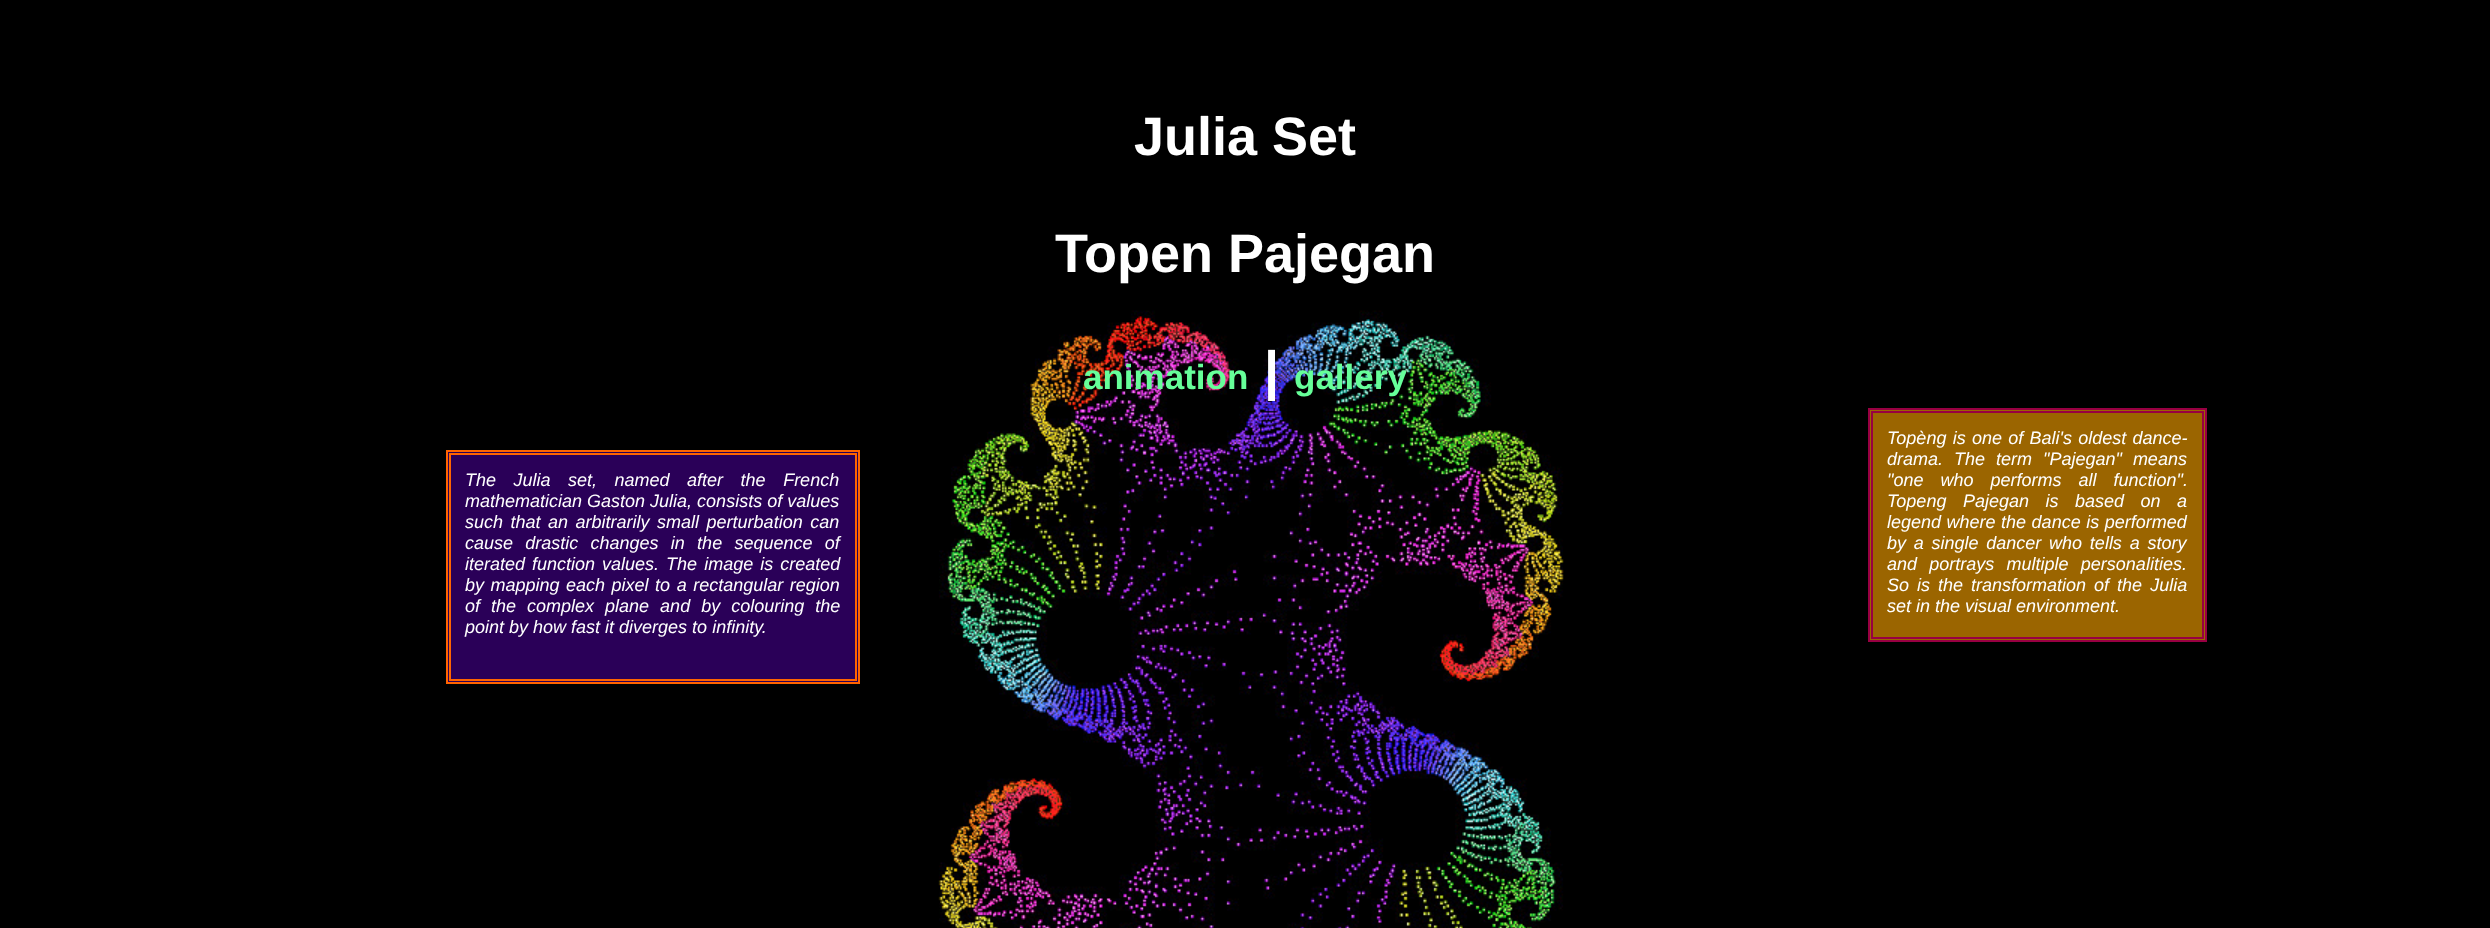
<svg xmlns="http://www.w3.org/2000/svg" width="2490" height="928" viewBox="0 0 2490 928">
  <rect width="100%" height="100%" fill="rgb(0,0,0)"/>
  <image x="938" y="310" width="626" height="618" href="pic1.png"/>
  <g font-family="Liberation Sans" font-size="54" font-weight="bold" fill="rgb(255,255,255)">
    <text x="1134" y="155">Julia Set</text>
    <text x="1055" y="272">Topen Pajegan</text>
  </g>
  <text x="1083" y="389" font-family="Liberation Sans" font-size="35" font-weight="bold" fill="rgb(102,255,153)">animation</text>
  <text x="1264" y="389" font-family="Liberation Sans" font-size="54" font-weight="bold" fill="rgb(255,255,255)">|</text>
  <text x="1294" y="389" font-family="Liberation Sans" font-size="35" font-weight="bold" fill="rgb(102,255,153)">gallery</text>
  <rect x="447" y="451" width="412" height="232" fill="rgb(42,0,88)" stroke="rgb(255,100,0)" stroke-width="2"/>
  <rect x="450" y="454" width="406" height="226" fill="none" stroke="rgb(255,100,0)" stroke-width="2"/>
  <g font-family="Liberation Sans" font-size="18" font-style="italic" fill="rgb(255,255,255)">
    <text>
      <tspan x="465" y="486" word-spacing="12.5">The Julia set, named after the French</tspan>
      <tspan x="465" y="507">mathematician Gaston Julia, consists of values</tspan>
      <tspan x="465" y="528" word-spacing="2.5">such that an arbitrarily small perturbation can</tspan>
      <tspan x="465" y="549" word-spacing="7.25">cause drastic changes in the sequence of</tspan>
      <tspan x="465" y="570" word-spacing="2">iterated function values. The image is created</tspan>
      <tspan x="465" y="591" word-spacing="1.5">by mapping each pixel to a rectangular region</tspan>
      <tspan x="465" y="612" word-spacing="6">of the complex plane and by colouring the</tspan>
      <tspan x="465" y="633">point by how fast it diverges to infinity.</tspan>
    </text>
  </g>
  <rect x="1869" y="409" width="337" height="232" fill="rgb(155,101,0)" stroke="rgb(152,0,66)" stroke-width="2"/>
  <rect x="1872" y="412" width="331" height="226" fill="none" stroke="rgb(152,0,66)" stroke-width="2"/>
  <g font-family="Liberation Sans" font-size="18" font-style="italic" fill="rgb(255,255,255)">
    <text>
      <tspan x="1887" y="444" word-spacing="1.25">Topèng is one of Bali's oldest dance-</tspan>
      <tspan x="1887" y="465" word-spacing="6">drama. The term "Pajegan" means</tspan>
      <tspan x="1887" y="486" word-spacing="12">"one who performs all function".</tspan>
      <tspan x="1887" y="507" word-spacing="11.5">Topeng Pajegan is based on a</tspan>
      <tspan x="1887" y="528" word-spacing="0.5">legend where the dance is performed</tspan>
      <tspan x="1887" y="549" word-spacing="2.75">by a single dancer who tells a story</tspan>
      <tspan x="1887" y="570" word-spacing="7.25">and portrays multiple personalities.</tspan>
      <tspan x="1887" y="591" word-spacing="3">So is the transformation of the Julia</tspan>
      <tspan x="1887" y="612">set in the visual environment.</tspan>
    </text>
  </g>
</svg>
